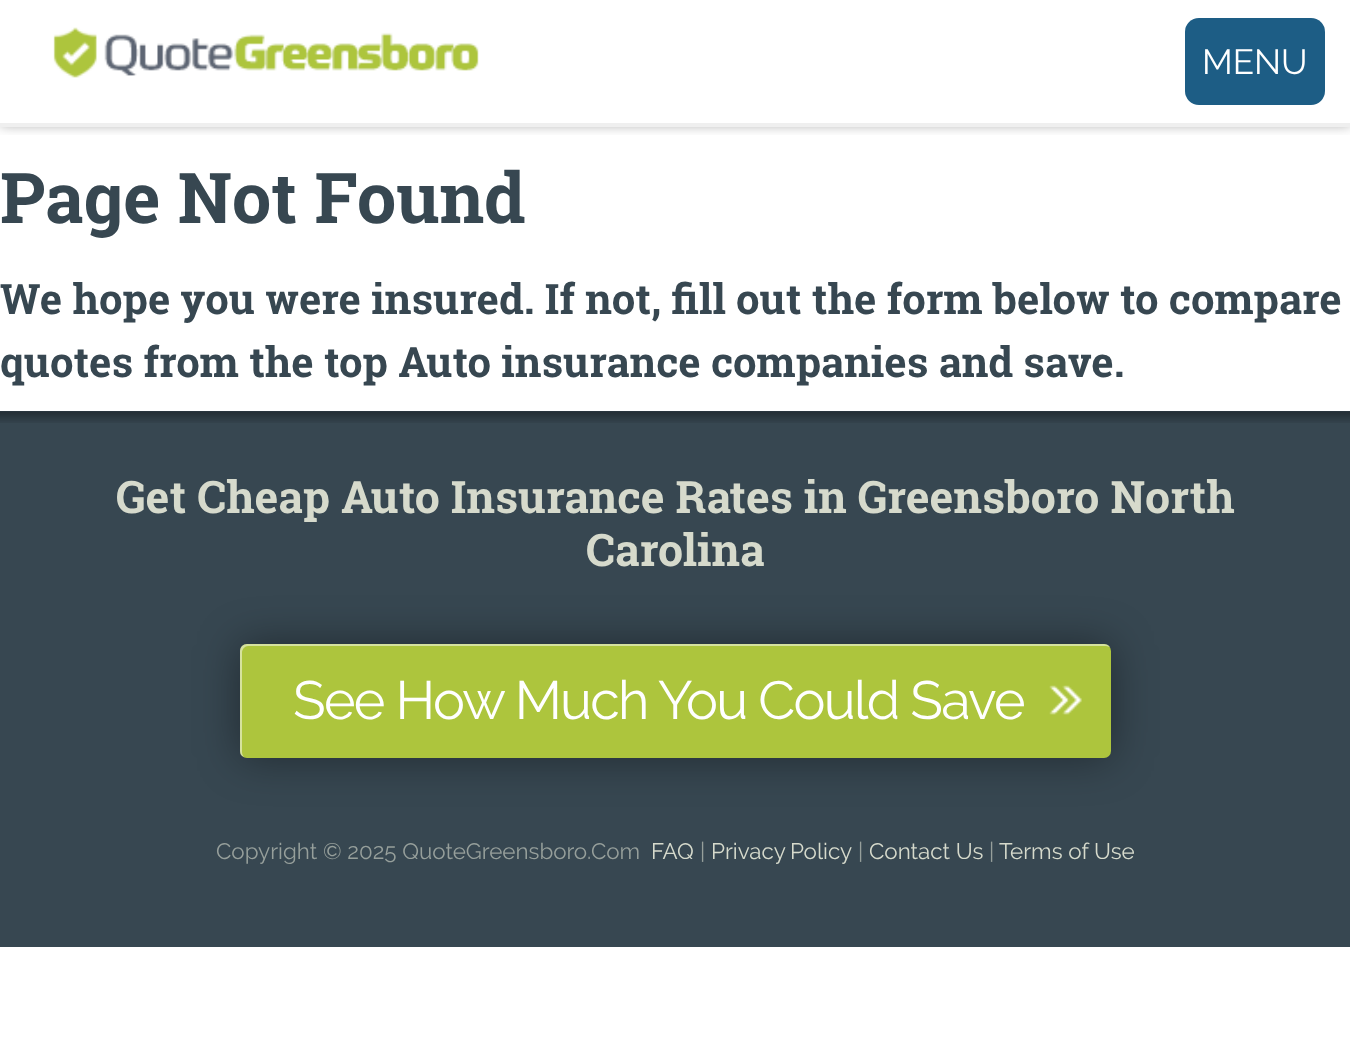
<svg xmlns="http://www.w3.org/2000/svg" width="1350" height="1058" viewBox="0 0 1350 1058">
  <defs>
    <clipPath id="clip1"><rect x="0" y="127" width="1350" height="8"/></clipPath>
  </defs>
  <rect width="100%" height="100%" fill="rgb(255,255,255)"/>
  <g clip-path="url(#clip1)">
    <rect x="0" y="0" width="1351" height="126" fill="rgba(0,0,0,0.3)" filter="blur(6px)"/>
  </g>
  <rect x="0" y="123" width="1350" height="4" fill="rgb(239,239,239)"/>
  <image x="53" y="27" width="426" height="51" href="pic1.png"/>
  <rect x="1185" y="18" width="140" height="87" rx="14" fill="rgb(29,93,133)"/>
  <text x="1202" y="74" font-family="Raleway" font-size="35" fill="rgb(255,255,255)">MENU</text>
  <text x="0" y="223" font-family="Roboto Slab" font-size="70" font-weight="bold" fill="rgb(55,71,81)">Page Not Found</text>
  <g font-family="Roboto Slab" font-size="42" font-weight="bold" fill="rgb(55,71,81)">
    <text>
      <tspan x="0" y="314">We hope you were insured. If not, fill out the form below to compare</tspan>
      <tspan x="0" y="377">quotes from the top Auto insurance companies and save.</tspan>
    </text>
  </g>
  <rect x="0" y="411" width="1350" height="536" fill="rgb(55,71,81)"/>
  <image x="0" y="411" width="1350" height="12" href="pic2.png"/>
  <g font-family="Roboto Slab" font-size="44.8" font-weight="bold" fill="rgb(214,218,204)">
    <text x="116" y="513">Get Cheap Auto Insurance Rates in Greensboro North</text>
    <text x="586" y="566">Carolina</text>
  </g>
  <rect x="240" y="644" width="871" height="114" rx="7" fill="rgba(0,0,0,0.4)" filter="blur(22px)"/>
  <rect x="240" y="644" width="871" height="114" rx="7" fill="rgb(173,197,61)"/>
  <image x="1049" y="685" width="33" height="30" href="pic3.png"/>
  <path d="M248 646H1106L1110 647C1109 645 1106 644 1104 644H247C243 644 240 647 240 651V751C240 754 241 756 244 757C243 756 242 754 242 752V653C242 649 245 646 248 646Z" fill="rgba(255,255,255,0.5)"/>
  <text x="293" y="719" font-family="Raleway" font-size="53.75" letter-spacing="-1.75" fill="rgb(255,255,255)">See How Much You Could Save</text>
  <text x="216" y="859" font-family="Raleway" font-size="22.4" fill="rgb(150,159,155)">Copyright © 2025 QuoteGreensboro.Com</text>
  <text x="651" y="859" font-family="Raleway" font-size="22.4" fill="rgb(214,218,204)">FAQ</text>
  <text x="700" y="859" font-family="Raleway" font-size="22.4" fill="rgb(150,159,155)">|</text>
  <text x="711" y="859" word-spacing="-1" font-family="Raleway" font-size="22.4" fill="rgb(214,218,204)">Privacy Policy</text>
  <text x="858" y="859" font-family="Raleway" font-size="22.4" fill="rgb(150,159,155)">|</text>
  <text x="869" y="859" font-family="Raleway" font-size="22.4" fill="rgb(214,218,204)">Contact Us</text>
  <text x="989" y="859" font-family="Raleway" font-size="22.4" fill="rgb(150,159,155)">|</text>
  <text x="999" y="859" font-family="Raleway" font-size="22.4" fill="rgb(214,218,204)">Terms of Use</text>
</svg>
